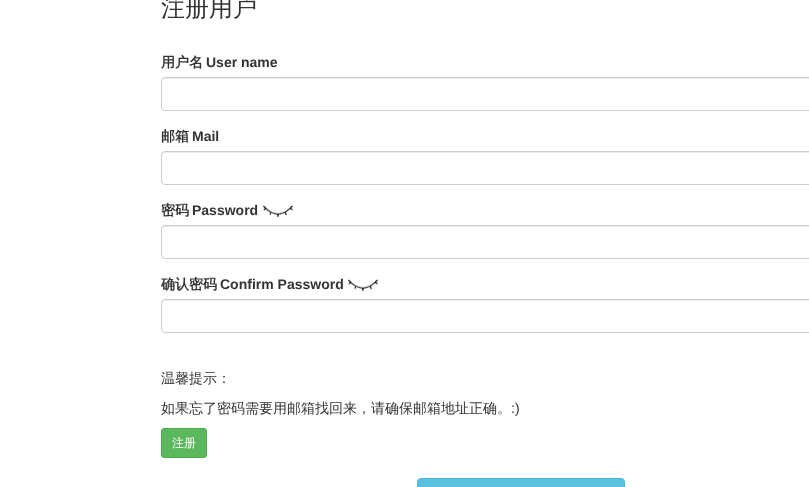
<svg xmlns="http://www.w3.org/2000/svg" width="809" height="487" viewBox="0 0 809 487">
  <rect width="100%" height="100%" fill="rgb(255,255,255)"/>
  <text x="161" y="16" font-family="WenQuanYi Zen Hei" font-size="24" font-weight="500" fill="rgb(51,51,51)">注册用户</text>
  <text x="161" y="67" font-family="WenQuanYi Zen Hei" font-size="14" font-weight="bold" fill="rgb(51,51,51)">用户名</text>
  <text x="206" y="67" font-family="Liberation Sans" font-size="14" font-weight="bold" fill="rgb(51,51,51)">User name</text>
  <path d="M165 79H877C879 79 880 80 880 82C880 80 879 78 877 78H165C163 78 162 80 162 82C162 80 163 79 165 79Z" fill="rgb(236,236,236)"/>
  <rect x="161.5" y="77.5" width="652" height="33" rx="3.5" fill="none" stroke="rgb(204,204,204)"/>
  <text x="161" y="141" font-family="WenQuanYi Zen Hei" font-size="14" font-weight="bold" fill="rgb(51,51,51)">邮箱</text>
  <text x="192" y="141" font-family="Liberation Sans" font-size="14" font-weight="bold" fill="rgb(51,51,51)">Mail</text>
  <path d="M165 153H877C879 153 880 154 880 156C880 154 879 152 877 152H165C163 152 162 154 162 156C162 154 163 153 165 153Z" fill="rgb(236,236,236)"/>
  <rect x="161.5" y="151.5" width="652" height="33" rx="3.5" fill="none" stroke="rgb(204,204,204)"/>
  <text x="161" y="215" font-family="WenQuanYi Zen Hei" font-size="14" font-weight="bold" fill="rgb(51,51,51)">密码</text>
  <text x="192" y="215" font-family="Liberation Sans" font-size="14" font-weight="bold" fill="rgb(51,51,51)">Password</text>
  <image x="263" y="205" width="30" height="12" href="pic1.png"/>
  <path d="M165 227H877C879 227 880 228 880 230C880 228 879 226 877 226H165C163 226 162 228 162 230C162 228 163 227 165 227Z" fill="rgb(236,236,236)"/>
  <rect x="161.5" y="225.5" width="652" height="33" rx="3.5" fill="none" stroke="rgb(204,204,204)"/>
  <text x="161" y="289" font-family="WenQuanYi Zen Hei" font-size="14" font-weight="bold" fill="rgb(51,51,51)">确认密码</text>
  <text x="220" y="289" font-family="Liberation Sans" font-size="14" font-weight="bold" fill="rgb(51,51,51)">Confirm Password</text>
  <image x="348" y="279" width="30" height="12" href="pic1.png"/>
  <path d="M165 301H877C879 301 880 302 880 304C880 302 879 300 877 300H165C163 300 162 302 162 304C162 302 163 301 165 301Z" fill="rgb(236,236,236)"/>
  <rect x="161.5" y="299.5" width="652" height="33" rx="3.5" fill="none" stroke="rgb(204,204,204)"/>
  <g font-family="WenQuanYi Zen Hei" font-size="14" font-weight="500" fill="rgb(51,51,51)">
    <text x="161" y="383">温馨提示：</text>
    <text x="161" y="413">如果忘了密码需要用邮箱找回来，请确保邮箱地址正确。</text>
  </g>
  <text x="511" y="413" font-family="Liberation Sans" font-size="14" fill="rgb(51,51,51)">:)</text>
  <rect x="161.5" y="428.5" width="45" height="29" rx="2.5" fill="rgb(92,184,92)" stroke="rgb(76,174,76)"/>
  <text x="172" y="447" font-family="WenQuanYi Zen Hei" font-size="12" font-weight="500" fill="rgb(255,255,255)">注册</text>
  <rect x="417.5" y="478.5" width="207" height="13" rx="3.5" fill="rgb(91,192,222)" stroke="rgb(70,184,218)"/>
</svg>
